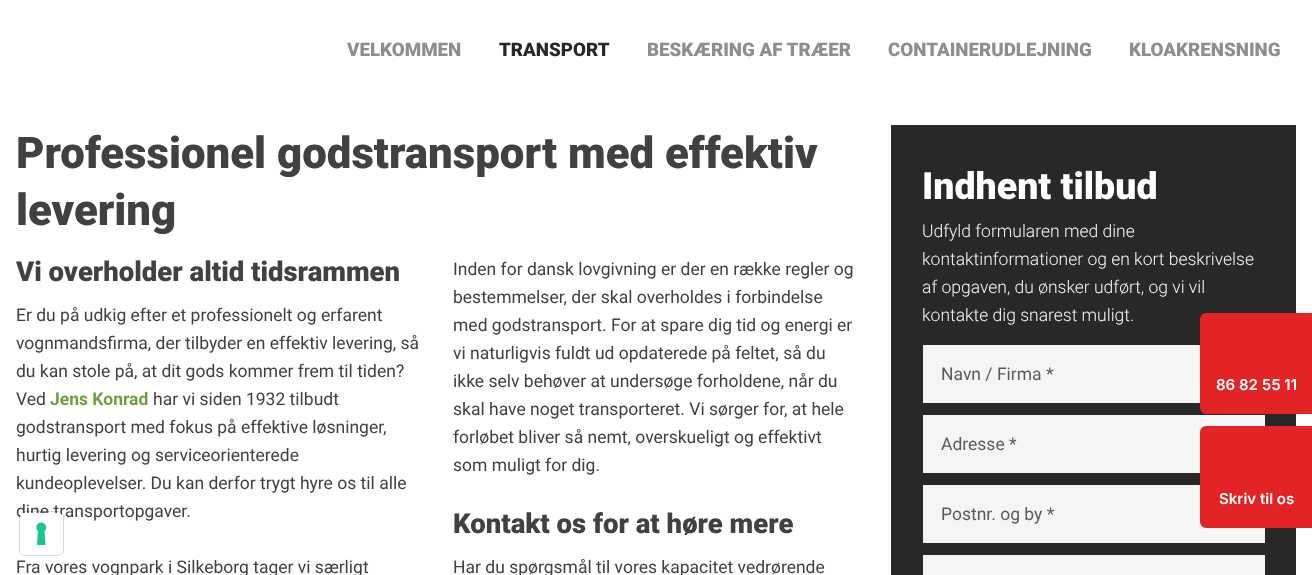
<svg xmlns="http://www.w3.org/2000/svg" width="1312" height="575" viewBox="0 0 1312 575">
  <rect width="100%" height="100%" fill="rgb(255,255,255)"/>
  <text x="347" y="56" font-family="Roboto" font-size="18.75" font-weight="900" fill="rgb(142,142,142)">VELKOMMEN</text>
  <text x="499" y="56" font-family="Roboto" font-size="18.75" font-weight="900" fill="rgb(40,40,40)">TRANSPORT</text>
  <g font-family="Roboto" font-size="18.75" font-weight="900" fill="rgb(142,142,142)">
    <text x="647" y="56">BESKÆRING AF TRÆER</text>
    <text x="888" y="56">CONTAINERUDLEJNING</text>
    <text x="1129" y="56">KLOAKRENSNING</text>
  </g>
  <g font-family="Roboto" font-size="43.75" font-weight="900" fill="rgb(65,65,65)">
    <text>
      <tspan x="16" y="168">Professionel godstransport med effektiv</tspan>
      <tspan x="16" y="225">levering</tspan>
    </text>
  </g>
  <text x="16" y="281" font-family="Roboto" font-size="27.5" font-weight="900" fill="rgb(65,65,65)">Vi overholder altid tidsrammen</text>
  <g font-family="Roboto" font-size="17.5" fill="rgb(65,65,65)">
    <text>
      <tspan x="16" y="321">Er du på udkig efter et professionelt og erfarent</tspan>
      <tspan x="16" y="349">vognmandsfirma, der tilbyder en effektiv levering, så</tspan>
      <tspan x="16" y="377">du kan stole på, at dit gods kommer frem til tiden?</tspan>
      <tspan x="16" y="405">Ved</tspan>
    </text>
  </g>
  <text x="50" y="405" font-family="Roboto" font-size="17.5" font-weight="bold" fill="rgb(113,157,64)">Jens Konrad</text>
  <g font-family="Roboto" font-size="17.5" fill="rgb(65,65,65)">
    <text x="153" y="405">har vi siden 1932 tilbudt</text>
    <text>
      <tspan x="16" y="433">godstransport med fokus på effektive løsninger,</tspan>
      <tspan x="16" y="461">hurtig levering og serviceorienterede</tspan>
      <tspan x="16" y="489">kundeoplevelser. Du kan derfor trygt hyre os til alle</tspan>
      <tspan x="16" y="517">dine transportopgaver.</tspan>
    </text>
    <text x="16" y="573">Fra vores vognpark i Silkeborg tager vi særligt</text>
    <text>
      <tspan x="453" y="275">Inden for dansk lovgivning er der en række regler og</tspan>
      <tspan x="453" y="303">bestemmelser, der skal overholdes i forbindelse</tspan>
      <tspan x="453" y="331">med godstransport. For at spare dig tid og energi er</tspan>
      <tspan x="453" y="359">vi naturligvis fuldt ud opdaterede på feltet, så du</tspan>
      <tspan x="453" y="387">ikke selv behøver at undersøge forholdene, når du</tspan>
      <tspan x="453" y="415">skal have noget transporteret. Vi sørger for, at hele</tspan>
      <tspan x="453" y="443">forløbet bliver så nemt, overskueligt og effektivt</tspan>
      <tspan x="453" y="471">som muligt for dig.</tspan>
    </text>
  </g>
  <text x="453" y="533" font-family="Roboto" font-size="27.5" font-weight="900" fill="rgb(65,65,65)">Kontakt os for at høre mere</text>
  <text x="453" y="573" font-family="Roboto" font-size="17.5" fill="rgb(65,65,65)">Har du spørgsmål til vores kapacitet vedrørende</text>
  <rect x="891" y="125" width="405" height="450" fill="rgb(40,40,40)"/>
  <text x="922" y="199" font-family="Roboto" font-size="37.5" font-weight="900" fill="rgb(255,255,255)">Indhent tilbud</text>
  <g font-family="Roboto" font-size="17.5" font-weight="300" fill="rgb(245,245,245)">
    <text>
      <tspan x="922" y="237">Udfyld formularen med dine</tspan>
      <tspan x="922" y="265">kontaktinformationer og en kort beskrivelse</tspan>
      <tspan x="922" y="293">af opgaven, du ønsker udført, og vi vil</tspan>
      <tspan x="922" y="321">kontakte dig snarest muligt.</tspan>
    </text>
  </g>
  <rect x="923" y="345" width="277" height="58" fill="rgb(245,245,245)"/>
  <text x="941" y="380" font-family="Roboto" font-size="17.5" fill="rgb(91,91,91)">Navn / Firma *</text>
  <rect x="923" y="415" width="342" height="58" fill="rgb(245,245,245)"/>
  <text x="941" y="450" font-family="Roboto" font-size="17.5" fill="rgb(91,91,91)">Adresse *</text>
  <rect x="923" y="485" width="342" height="58" fill="rgb(245,245,245)"/>
  <text x="941" y="520" font-family="Roboto" font-size="17.5" fill="rgb(91,91,91)">Postnr. og by *</text>
  <rect x="923" y="555" width="342" height="20" fill="rgb(245,245,245)"/>
  <path d="M1206 314.5H1311.5V412.5H1206C1203.5 412.5 1201.5 410.5 1201.5 408V319C1201.5 316.5 1203.5 314.5 1206 314.5Z" fill="rgb(226,36,38)" stroke="rgb(226,36,38)" stroke-width="3"/>
  <text x="1216" y="390" font-family="Inter" font-size="15" font-weight="600" fill="rgb(255,255,255)">86 82 55 11</text>
  <path d="M1206 427.5H1311.5V526.5H1206C1203.5 526.5 1201.5 524.5 1201.5 522V432C1201.5 429.5 1203.5 427.5 1206 427.5Z" fill="rgb(226,36,38)" stroke="rgb(226,36,38)" stroke-width="3"/>
  <text x="1219" y="504" font-family="Inter" font-size="15" font-weight="600" fill="rgb(255,255,255)">Skriv til os</text>
  <rect x="19.5" y="511.5" width="44" height="44" rx="5.5" fill="none" stroke="rgba(0,0,0,0.15)"/>
  <rect x="20" y="513" width="43" height="42" rx="5" fill="rgb(255,255,255)"/>
  <image x="36" y="522" width="11" height="23" href="pic1.png"/>
</svg>
